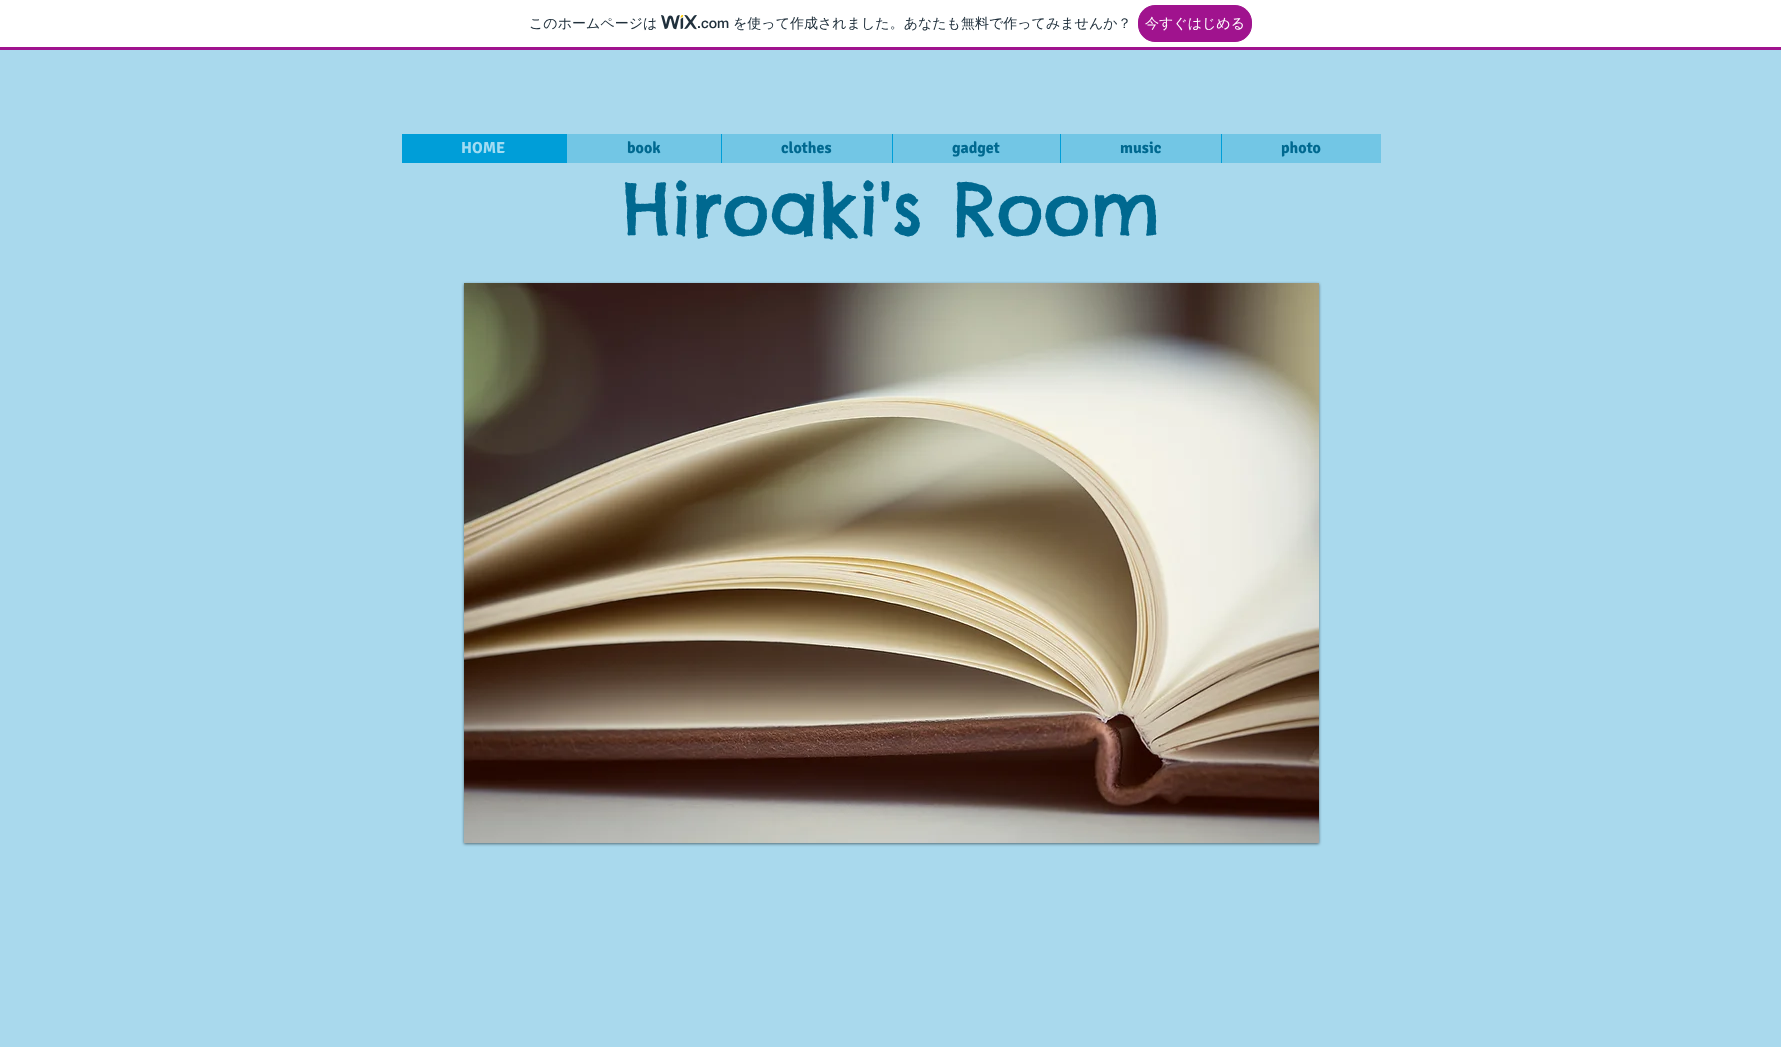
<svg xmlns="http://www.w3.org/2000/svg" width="1781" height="1047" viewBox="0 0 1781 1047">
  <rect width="100%" height="100%" fill="rgb(255,255,255)"/>
  <rect x="0" y="47" width="1781" height="3" fill="rgb(160,19,142)"/>
  <text x="529" y="28" font-family="WenQuanYi Zen Hei" font-size="14" font-weight="500" fill="rgb(32,48,60)">このホームページは</text>
  <image x="661" y="15" width="36" height="15" href="pic1.png"/>
  <text x="697" y="28" font-family="'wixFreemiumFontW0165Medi'" font-size="14" font-weight="500" fill="rgb(32,48,60)">.com</text>
  <text x="733" y="28" font-family="WenQuanYi Zen Hei" font-size="14" font-weight="500" fill="rgb(32,48,60)">を使って作成されました。あなたも無料で作ってみませんか？</text>
  <rect x="1138.5" y="5.5" width="113" height="36" rx="16.5" fill="rgb(160,19,142)" stroke="rgb(160,19,142)"/>
  <text x="1145" y="28" font-family="WenQuanYi Zen Hei" font-size="14" font-weight="500" fill="rgb(255,255,255)">今すぐはじめる</text>
  <rect x="0" y="50" width="1781" height="997" fill="rgb(169,217,237)"/>
  <rect x="567" y="134" width="814" height="29" fill="rgb(114,198,229)"/>
  <rect x="402" y="134" width="165" height="29" fill="rgb(0,158,216)"/>
  <text x="461" y="153" font-family="Signika" font-size="16" font-weight="bold" fill="rgb(161,220,242)">HOME</text>
  <text x="627" y="153" font-family="Signika" font-size="16" font-weight="bold" fill="rgb(0,105,144)">book</text>
  <rect x="721" y="134" width="1" height="29" fill="rgb(0,158,216)"/>
  <text x="781" y="153" font-family="Signika" font-size="16" font-weight="bold" fill="rgb(0,105,144)">clothes</text>
  <rect x="892" y="134" width="1" height="29" fill="rgb(0,158,216)"/>
  <text x="952" y="153" font-family="Signika" font-size="16" font-weight="bold" fill="rgb(0,105,144)">gadget</text>
  <rect x="1060" y="134" width="1" height="29" fill="rgb(0,158,216)"/>
  <text x="1120" y="153" font-family="Signika" font-size="16" font-weight="bold" fill="rgb(0,105,144)">music</text>
  <rect x="1221" y="134" width="1" height="29" fill="rgb(0,158,216)"/>
  <text x="1281" y="153" font-family="Signika" font-size="16" font-weight="bold" fill="rgb(0,105,144)">photo</text>
  <text x="622" y="235" font-family="Chelsea Market" font-size="72" fill="rgb(0,105,144)">Hiroaki's Room</text>
  <rect x="464" y="284" width="855" height="560" fill="rgba(0,0,0,0.5)" filter="blur(1.5px)"/>
  <image x="464" y="283" width="855" height="560" href="pic2.png"/>
</svg>
